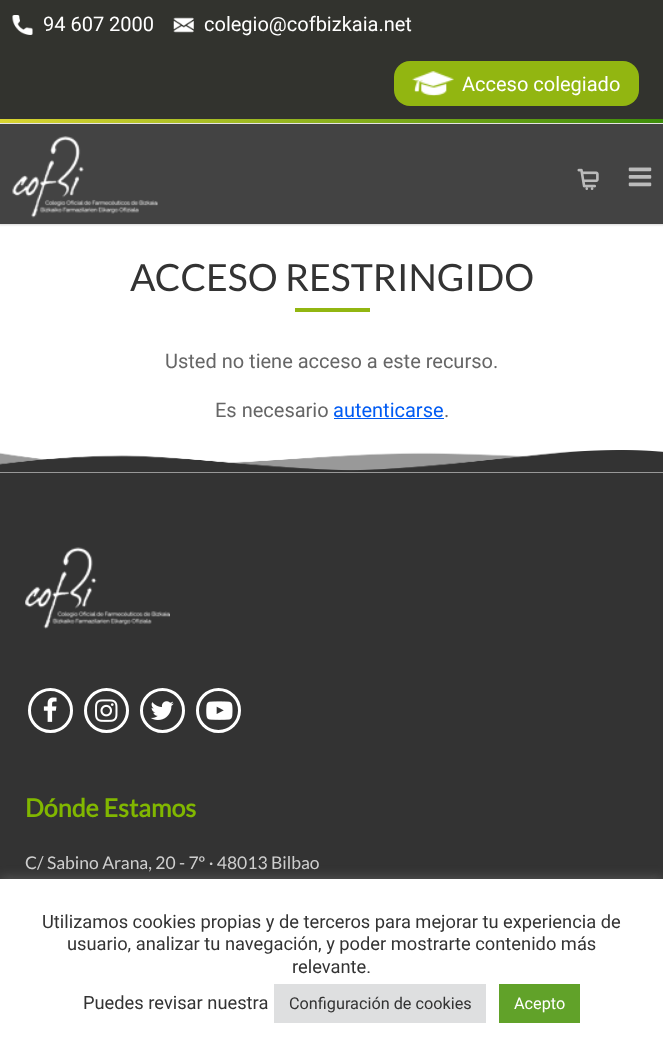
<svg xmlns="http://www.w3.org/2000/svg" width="663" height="1053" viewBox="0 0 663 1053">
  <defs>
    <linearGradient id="g1" gradientUnits="userSpaceOnUse" x1="0" y1="121" x2="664" y2="121"><stop offset="0" stop-color="rgb(217,212,49)"/><stop offset="1" stop-color="rgb(61,141,10)"/></linearGradient>
  </defs>
  <rect width="100%" height="100%" fill="rgb(255,255,255)"/>
  <rect x="0" y="0" width="663" height="119" fill="rgb(50,51,46)"/>
  <image x="12" y="15" width="21" height="20" href="pic1.png"/>
  <text x="43" y="31" font-family="Roboto" font-size="20" fill="rgb(255,255,255)">94 607 2000</text>
  <image x="173" y="17" width="21" height="16" href="pic2.png"/>
  <text x="204" y="31" font-family="Roboto" font-size="20" fill="rgb(255,255,255)">colegio@cofbizkaia.net</text>
  <rect x="394" y="61" width="245" height="45" rx="16" fill="rgb(146,182,17)"/>
  <image x="412" y="71" width="42" height="25" href="pic3.png"/>
  <text x="462" y="91" font-family="Roboto" font-size="20" fill="rgb(255,255,255)">Acceso colegiado</text>
  <rect x="-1" y="123" width="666" height="102" fill="rgba(0,0,0,0.16)" filter="blur(1px)"/>
  <rect x="0" y="119" width="663" height="4" fill="url(#g1)"/>
  <rect x="0" y="124" width="663" height="100" fill="rgb(67,67,67)"/>
  <image x="12" y="136" width="146" height="82" href="pic4.png"/>
  <image x="577" y="168" width="22" height="22" href="pic5.png"/>
  <image x="628" y="167" width="24" height="20" href="pic6.png"/>
  <text x="130" y="291" font-family="Lato" font-size="37.5" fill="rgb(51,51,51)">ACCESO RESTRINGIDO</text>
  <rect x="295" y="308" width="75" height="4" fill="rgb(146,182,17)"/>
  <g font-family="Roboto" font-size="20" fill="rgb(102,102,102)">
    <text x="165" y="368">Usted no tiene acceso a este recurso.</text>
    <text x="215" y="417">Es necesario</text>
  </g>
  <text x="333" y="417" font-family="Roboto" font-size="20" fill="rgb(0,91,243)">autenticarse</text>
  <rect x="334" y="418" width="110" height="1" fill="rgb(0,91,243)"/>
  <text x="444" y="417" font-family="Roboto" font-size="20" fill="rgb(102,102,102)">.</text>
  <rect x="0" y="473" width="663" height="406" fill="rgb(51,51,51)"/>
  <image x="0" y="450" width="663" height="23" href="pic7.png"/>
  <image x="25" y="547" width="145" height="82" href="pic8.png"/>
  <circle cx="50.5" cy="710.5" r="21" fill="none" stroke="rgb(255,255,255)" stroke-width="3"/>
  <image x="43" y="697" width="14" height="25" href="pic9.png"/>
  <circle cx="106.5" cy="710.5" r="21" fill="none" stroke="rgb(255,255,255)" stroke-width="3"/>
  <image x="95" y="699" width="23" height="23" href="pic10.png"/>
  <circle cx="162.5" cy="710.5" r="21" fill="none" stroke="rgb(255,255,255)" stroke-width="3"/>
  <image x="150" y="701" width="24" height="19" href="pic11.png"/>
  <circle cx="218.5" cy="710.5" r="21" fill="none" stroke="rgb(255,255,255)" stroke-width="3"/>
  <image x="206" y="701" width="27" height="19" href="pic12.png"/>
  <text x="25" y="817" font-family="Lato" font-size="25" font-weight="bold" fill="rgb(129,183,0)">Dónde Estamos</text>
  <text x="25" y="869" font-family="Lato" font-size="17.5" fill="rgb(207,207,207)">C/ Sabino Arana, 20 - 7º · 48013 Bilbao</text>
  <rect x="0" y="878" width="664" height="175" fill="rgba(172,171,171,0.3)" filter="blur(6px)"/>
  <rect x="0" y="879" width="663" height="174" fill="rgb(255,255,255)"/>
  <g font-family="Roboto" font-size="18.3" fill="rgb(51,51,51)">
    <text x="42" y="928">Utilizamos cookies propias y de terceros para mejorar tu experiencia de</text>
    <text x="67" y="950">usuario, analizar tu navegación, y poder mostrarte contenido más</text>
    <text x="292" y="973">relevante.</text>
    <text x="83" y="1009">Puedes revisar nuestra</text>
  </g>
  <rect x="274" y="984" width="212" height="39" fill="rgb(222,223,224)"/>
  <text x="289" y="1009" font-family="Roboto" font-size="16.25" fill="rgb(51,51,51)">Configuración de cookies</text>
  <rect x="499" y="984" width="81" height="39" fill="rgb(97,162,41)"/>
  <text x="514" y="1009" font-family="Roboto" font-size="16.25" fill="rgb(255,255,255)">Acepto</text>
</svg>
